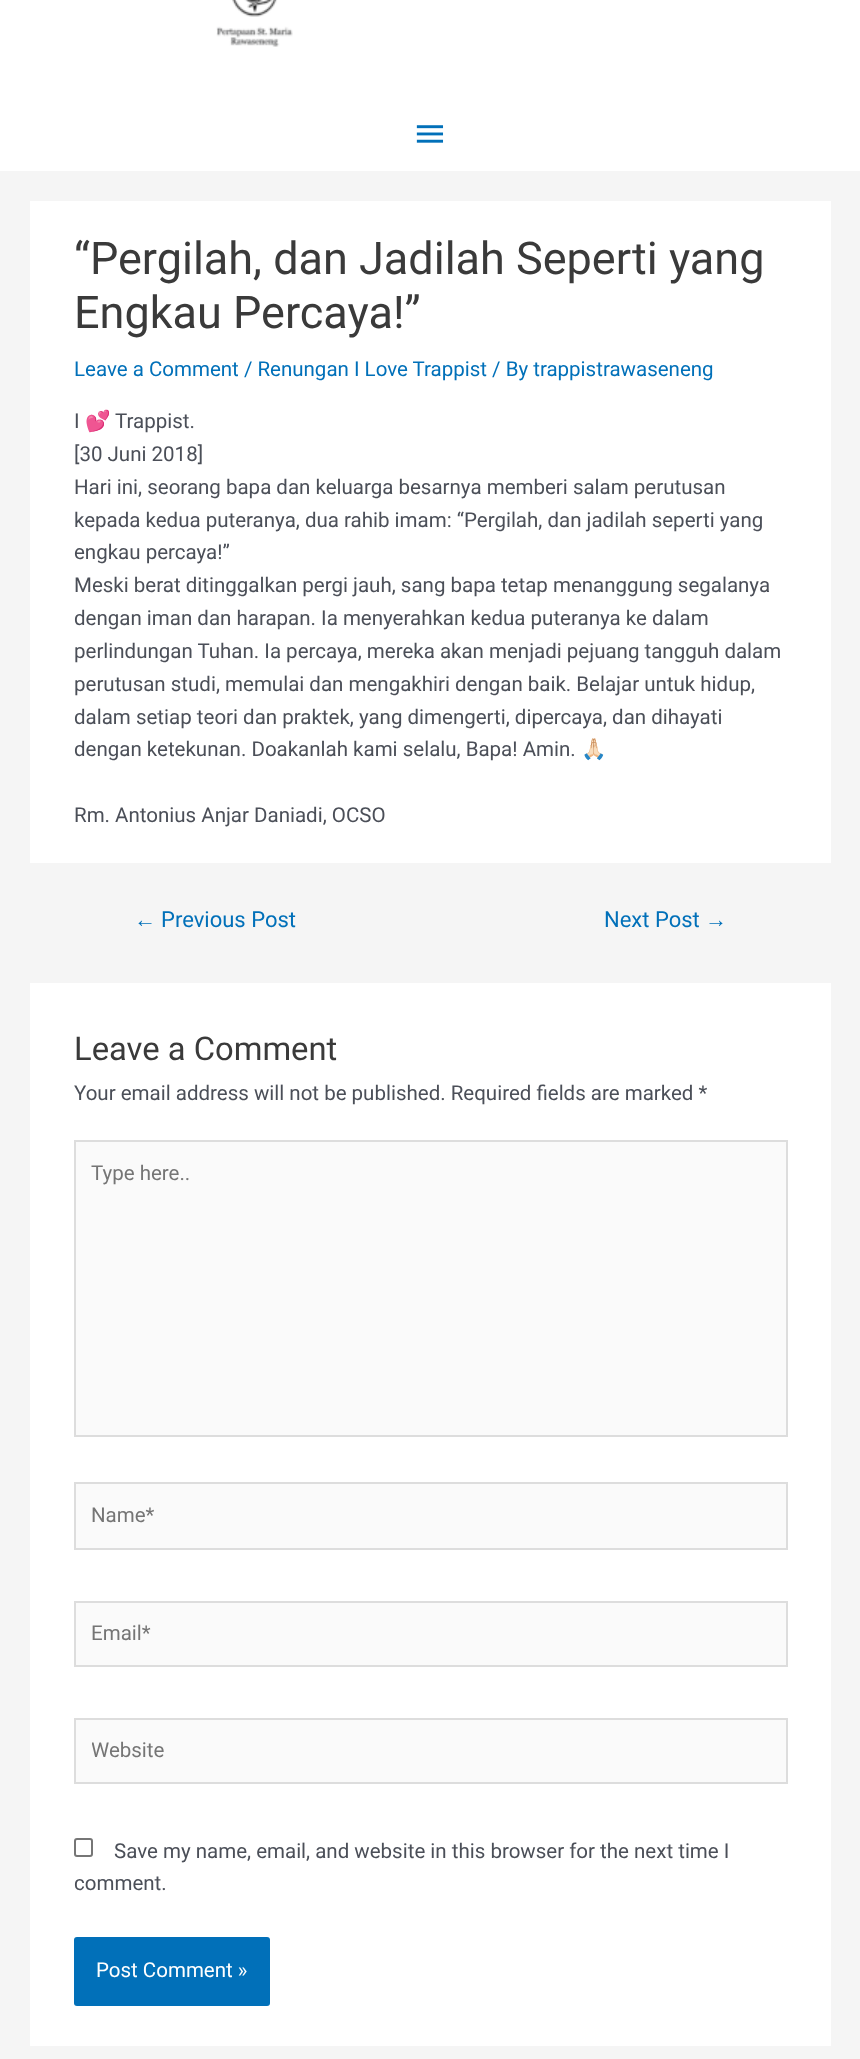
<svg xmlns="http://www.w3.org/2000/svg" width="860" height="2059" viewBox="0 0 860 2059">
  <defs>
    <clipPath id="clip1"><rect x="92" y="1737" width="678" height="24"/></clipPath>
  </defs>
  <rect width="100%" height="100%" fill="rgb(245,245,245)"/>
  <rect x="0" y="0" width="860" height="171" fill="rgb(255,255,255)"/>
  <image x="216" y="0" width="77" height="47" href="pic1.png"/>
  <image x="416" y="125" width="28" height="18" href="pic2.png"/>
  <rect x="30" y="201" width="801" height="662" fill="rgb(255,255,255)"/>
  <g font-family="Roboto" font-size="45" fill="rgb(58,58,58)">
    <text>
      <tspan x="74" y="274">“Pergilah, dan Jadilah Seperti yang</tspan>
      <tspan x="74" y="328">Engkau Percaya!”</tspan>
    </text>
  </g>
  <text x="74" y="376" font-family="Roboto" font-size="20.5" fill="rgb(1,112,185)">Leave a Comment / Renungan I Love Trappist / By trappistrawaseneng</text>
  <text x="74" y="428" font-family="Roboto" font-size="20.5" fill="rgb(75,79,88)">I</text>
  <text x="85" y="428" font-family="Noto Color Emoji" font-size="20.5" fill="rgb(75,79,88)">💕</text>
  <g font-family="Roboto" font-size="20.5" fill="rgb(75,79,88)">
    <text x="115" y="428">Trappist.</text>
    <text>
      <tspan x="74" y="461">[30 Juni 2018]</tspan>
      <tspan x="74" y="494">Hari ini, seorang bapa dan keluarga besarnya memberi salam perutusan</tspan>
      <tspan x="74" y="527">kepada kedua puteranya, dua rahib imam: “Pergilah, dan jadilah seperti yang</tspan>
      <tspan x="74" y="559">engkau percaya!”</tspan>
      <tspan x="74" y="592">Meski berat ditinggalkan pergi jauh, sang bapa tetap menanggung segalanya</tspan>
      <tspan x="74" y="625">dengan iman dan harapan. Ia menyerahkan kedua puteranya ke dalam</tspan>
      <tspan x="74" y="658">perlindungan Tuhan. Ia percaya, mereka akan menjadi pejuang tangguh dalam</tspan>
      <tspan x="74" y="691">perutusan studi, memulai dan mengakhiri dengan baik. Belajar untuk hidup,</tspan>
      <tspan x="74" y="724">dalam setiap teori dan praktek, yang dimengerti, dipercaya, dan dihayati</tspan>
      <tspan x="74" y="756">dengan ketekunan. Doakanlah kami selalu, Bapa! Amin.</tspan>
    </text>
  </g>
  <text x="581" y="756" font-family="Noto Color Emoji" font-size="20.5" fill="rgb(75,79,88)">🙏🏻</text>
  <text x="74" y="822" font-family="Roboto" font-size="20.5" fill="rgb(75,79,88)">Rm. Antonius Anjar Daniadi, OCSO</text>
  <text x="134" y="927" font-family="Liberation Sans" font-size="22" fill="rgb(1,112,185)">←</text>
  <g font-family="Roboto" font-size="22" fill="rgb(1,112,185)">
    <text x="161" y="927">Previous Post</text>
    <text x="604" y="927">Next Post</text>
  </g>
  <text x="705" y="927" font-family="Liberation Sans" font-size="22" fill="rgb(1,112,185)">→</text>
  <rect x="30" y="983" width="801" height="1063" fill="rgb(255,255,255)"/>
  <text x="74" y="1060" font-family="Roboto" font-size="32.75" fill="rgb(58,58,58)">Leave a Comment</text>
  <text x="74" y="1100" font-family="Roboto" font-size="20.5" fill="rgb(75,79,88)">Your email address will not be published. Required fields are marked *</text>
  <rect x="75" y="1141" width="712" height="295" fill="rgb(250,250,250)" stroke="rgb(221,221,221)" stroke-width="2"/>
  <text x="91" y="1180" font-family="Roboto" font-size="20.5" fill="rgb(117,117,117)">Type here..</text>
  <rect x="75" y="1483" width="712" height="66" fill="rgb(250,250,250)" stroke="rgb(221,221,221)" stroke-width="2"/>
  <text x="91" y="1522" font-family="Roboto" font-size="20.5" fill="rgb(117,117,117)">Name*</text>
  <rect x="75" y="1602" width="712" height="64" fill="rgb(250,250,250)" stroke="rgb(221,221,221)" stroke-width="2"/>
  <text x="91" y="1640" font-family="Roboto" font-size="20.5" fill="rgb(117,117,117)">Email*</text>
  <rect x="75" y="1719" width="712" height="64" fill="rgb(250,250,250)" stroke="rgb(221,221,221)" stroke-width="2"/>
  <g clip-path="url(#clip1)">
    <text x="91" y="1757" font-family="Roboto" font-size="20.5" fill="rgb(117,117,117)">Website</text>
  </g>
  <rect x="75" y="1839" width="17" height="17" rx="2" fill="none" stroke="rgb(118,118,118)" stroke-width="2"/>
  <g font-family="Roboto" font-size="20.5" fill="rgb(75,79,88)">
    <text x="114" y="1858">Save my name, email, and website in this browser for the next time I</text>
    <text x="74" y="1890">comment.</text>
  </g>
  <rect x="74" y="1937" width="196" height="69" rx="3" fill="rgb(1,112,185)"/>
  <text x="96" y="1977" font-family="Roboto" font-size="20.5" fill="rgb(255,255,255)">Post Comment »</text>
</svg>
